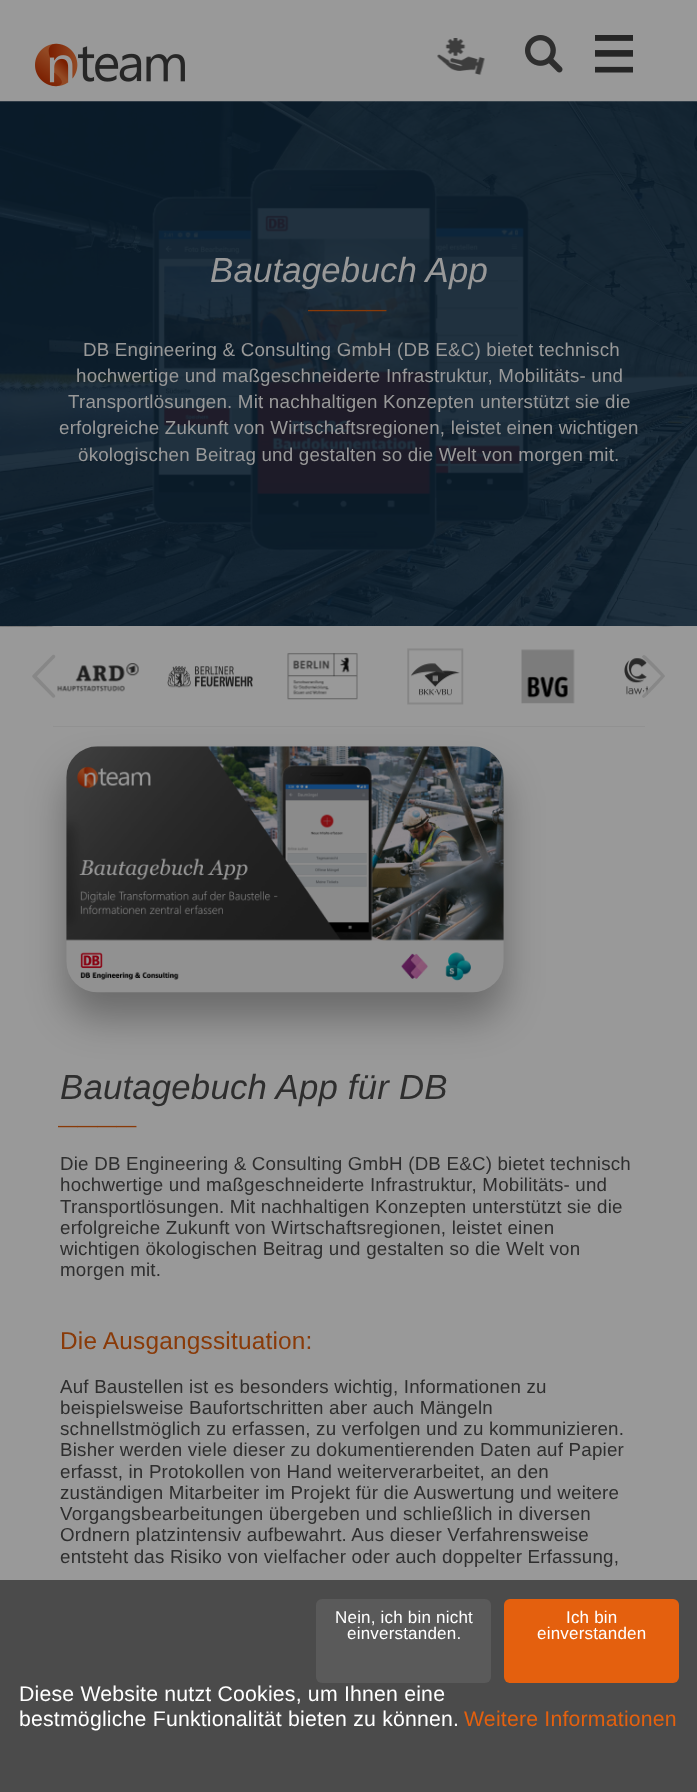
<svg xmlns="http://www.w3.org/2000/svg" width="697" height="1792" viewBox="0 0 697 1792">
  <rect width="100%" height="100%" fill="rgb(153,153,153)"/>
  <image x="35" y="43" width="150" height="44" href="pic1.png"/>
  <image x="437" y="38" width="48" height="37" href="pic2.png"/>
  <image x="525" y="35" width="38" height="38" href="pic3.png"/>
  <image x="595" y="35" width="38" height="38" href="pic4.png"/>
  <image x="0" y="101" width="697" height="526" href="pic5.png"/>
  <text x="210" y="282" font-family="Liberation Sans" font-size="34.75" font-style="italic" letter-spacing="0.2" fill="rgb(153,153,153)">Bautagebuch App</text>
  <text x="310" y="307" font-family="Liberation Sans" font-size="34.75" font-weight="bold" font-style="italic" letter-spacing="0.2" fill="rgb(137,58,8)">____</text>
  <g font-family="Liberation Sans" font-size="18.75" letter-spacing="0.2" fill="rgb(153,153,153)">
    <text x="83" y="356">DB Engineering &amp; Consulting GmbH (DB E&amp;C) bietet technisch</text>
    <text x="76" y="382">hochwertige und maßgeschneiderte Infrastruktur, Mobilitäts- und</text>
    <text x="68" y="408">Transportlösungen. Mit nachhaltigen Konzepten unterstützt sie die</text>
    <text x="59" y="434">erfolgreiche Zukunft von Wirtschaftsregionen, leistet einen wichtigen</text>
    <text x="78" y="461">ökologischen Beitrag und gestalten so die Welt von morgen mit.</text>
  </g>
  <rect x="66" y="771" width="438" height="247" rx="31" fill="rgba(0,0,0,0.3)" filter="blur(19px)"/>
  <path d="M55 626H642C645 626 648 628 648 631V722C648 725 645 726 642 726H55C52 726 50 725 50 722V631C50 628 52 626 55 626Z" fill="rgb(153,153,153)"/>
  <rect x="53" y="726" width="592" height="1" fill="rgb(145,145,145)"/>
  <image x="57" y="663" width="82" height="29" href="pic6.png"/>
  <image x="167" y="666" width="86" height="22" href="pic7.png"/>
  <image x="287" y="653" width="71" height="47" href="pic8.png"/>
  <image x="407" y="648" width="57" height="57" href="pic9.png"/>
  <image x="521" y="649" width="54" height="55" href="pic10.png"/>
  <image x="624" y="658" width="24" height="37" href="pic11.png"/>
  <image x="32" y="654" width="24" height="44" href="pic12.png"/>
  <path d="M661 676L642 657C642 656 643 655 644 655C646 655 665 675 665 676C665 677 646 697 644 698C643 698 642 697 642 696Z" fill="rgba(133,133,133,0.9)"/>
  <image x="66" y="746" width="438" height="247" href="pic13.png"/>
  <text x="60" y="1099" font-family="Liberation Sans" font-size="34.75" font-style="italic" letter-spacing="0.2" fill="rgb(46,46,46)">Bautagebuch App für DB</text>
  <text x="60" y="1123" font-family="Liberation Sans" font-size="34.75" font-weight="bold" font-style="italic" letter-spacing="0.2" fill="rgb(137,58,8)">____</text>
  <g font-family="Liberation Sans" font-size="18.75" letter-spacing="0.2" fill="rgb(46,46,46)">
    <text>
      <tspan x="60" y="1170">Die DB Engineering &amp; Consulting GmbH (DB E&amp;C) bietet technisch</tspan>
      <tspan x="60" y="1191">hochwertige und maßgeschneiderte Infrastruktur, Mobilitäts- und</tspan>
      <tspan x="60" y="1213">Transportlösungen. Mit nachhaltigen Konzepten unterstützt sie die</tspan>
      <tspan x="60" y="1234">erfolgreiche Zukunft von Wirtschaftsregionen, leistet einen</tspan>
      <tspan x="60" y="1255">wichtigen ökologischen Beitrag und gestalten so die Welt von</tspan>
      <tspan x="60" y="1276">morgen mit.</tspan>
    </text>
  </g>
  <text x="60" y="1349" font-family="Liberation Sans" font-size="24.4" letter-spacing="0.2" fill="rgb(137,58,8)">Die Ausgangssituation:</text>
  <g font-family="Liberation Sans" font-size="18.75" letter-spacing="0.2" fill="rgb(46,46,46)">
    <text>
      <tspan x="60" y="1393">Auf Baustellen ist es besonders wichtig, Informationen zu</tspan>
      <tspan x="60" y="1414">beispielsweise Baufortschritten aber auch Mängeln</tspan>
      <tspan x="60" y="1435">schnellstmöglich zu erfassen, zu verfolgen und zu kommunizieren.</tspan>
      <tspan x="60" y="1456">Bisher werden viele dieser zu dokumentierenden Daten auf Papier</tspan>
      <tspan x="60" y="1478">erfasst, in Protokollen von Hand weiterverarbeitet, an den</tspan>
      <tspan x="60" y="1499">zuständigen Mitarbeiter im Projekt für die Auswertung und weitere</tspan>
      <tspan x="60" y="1520">Vorgangsbearbeitungen übergeben und schließlich in diversen</tspan>
      <tspan x="60" y="1541">Ordnern platzintensiv aufbewahrt. Aus dieser Verfahrensweise</tspan>
      <tspan x="60" y="1563">entsteht das Risiko von vielfacher oder auch doppelter Erfassung,</tspan>
    </text>
  </g>
  <rect x="0" y="1580" width="697" height="212" fill="rgb(75,75,75)"/>
  <rect x="316" y="1599" width="175" height="84" rx="6" fill="rgb(90,90,90)"/>
  <g font-family="Liberation Sans" font-size="17" letter-spacing="0.2" fill="rgb(255,255,255)">
    <text x="335" y="1623">Nein, ich bin nicht</text>
    <text x="347" y="1639">einverstanden.</text>
  </g>
  <rect x="504" y="1599" width="175" height="84" rx="6" fill="rgb(228,96,14)"/>
  <g font-family="Liberation Sans" font-size="17" letter-spacing="0.2" fill="rgb(255,255,255)">
    <text x="566" y="1623">Ich bin</text>
    <text x="537" y="1639">einverstanden</text>
  </g>
  <g font-family="Liberation Sans" font-size="21.25" letter-spacing="0.2" fill="rgb(255,255,255)">
    <text>
      <tspan x="19" y="1701">Diese Website nutzt Cookies, um Ihnen eine</tspan>
      <tspan x="19" y="1726">bestmögliche Funktionalität bieten zu können.</tspan>
    </text>
  </g>
  <text x="464" y="1726" font-family="Liberation Sans" font-size="21.25" letter-spacing="0.2" fill="rgb(228,96,14)">Weitere Informationen</text>
</svg>
